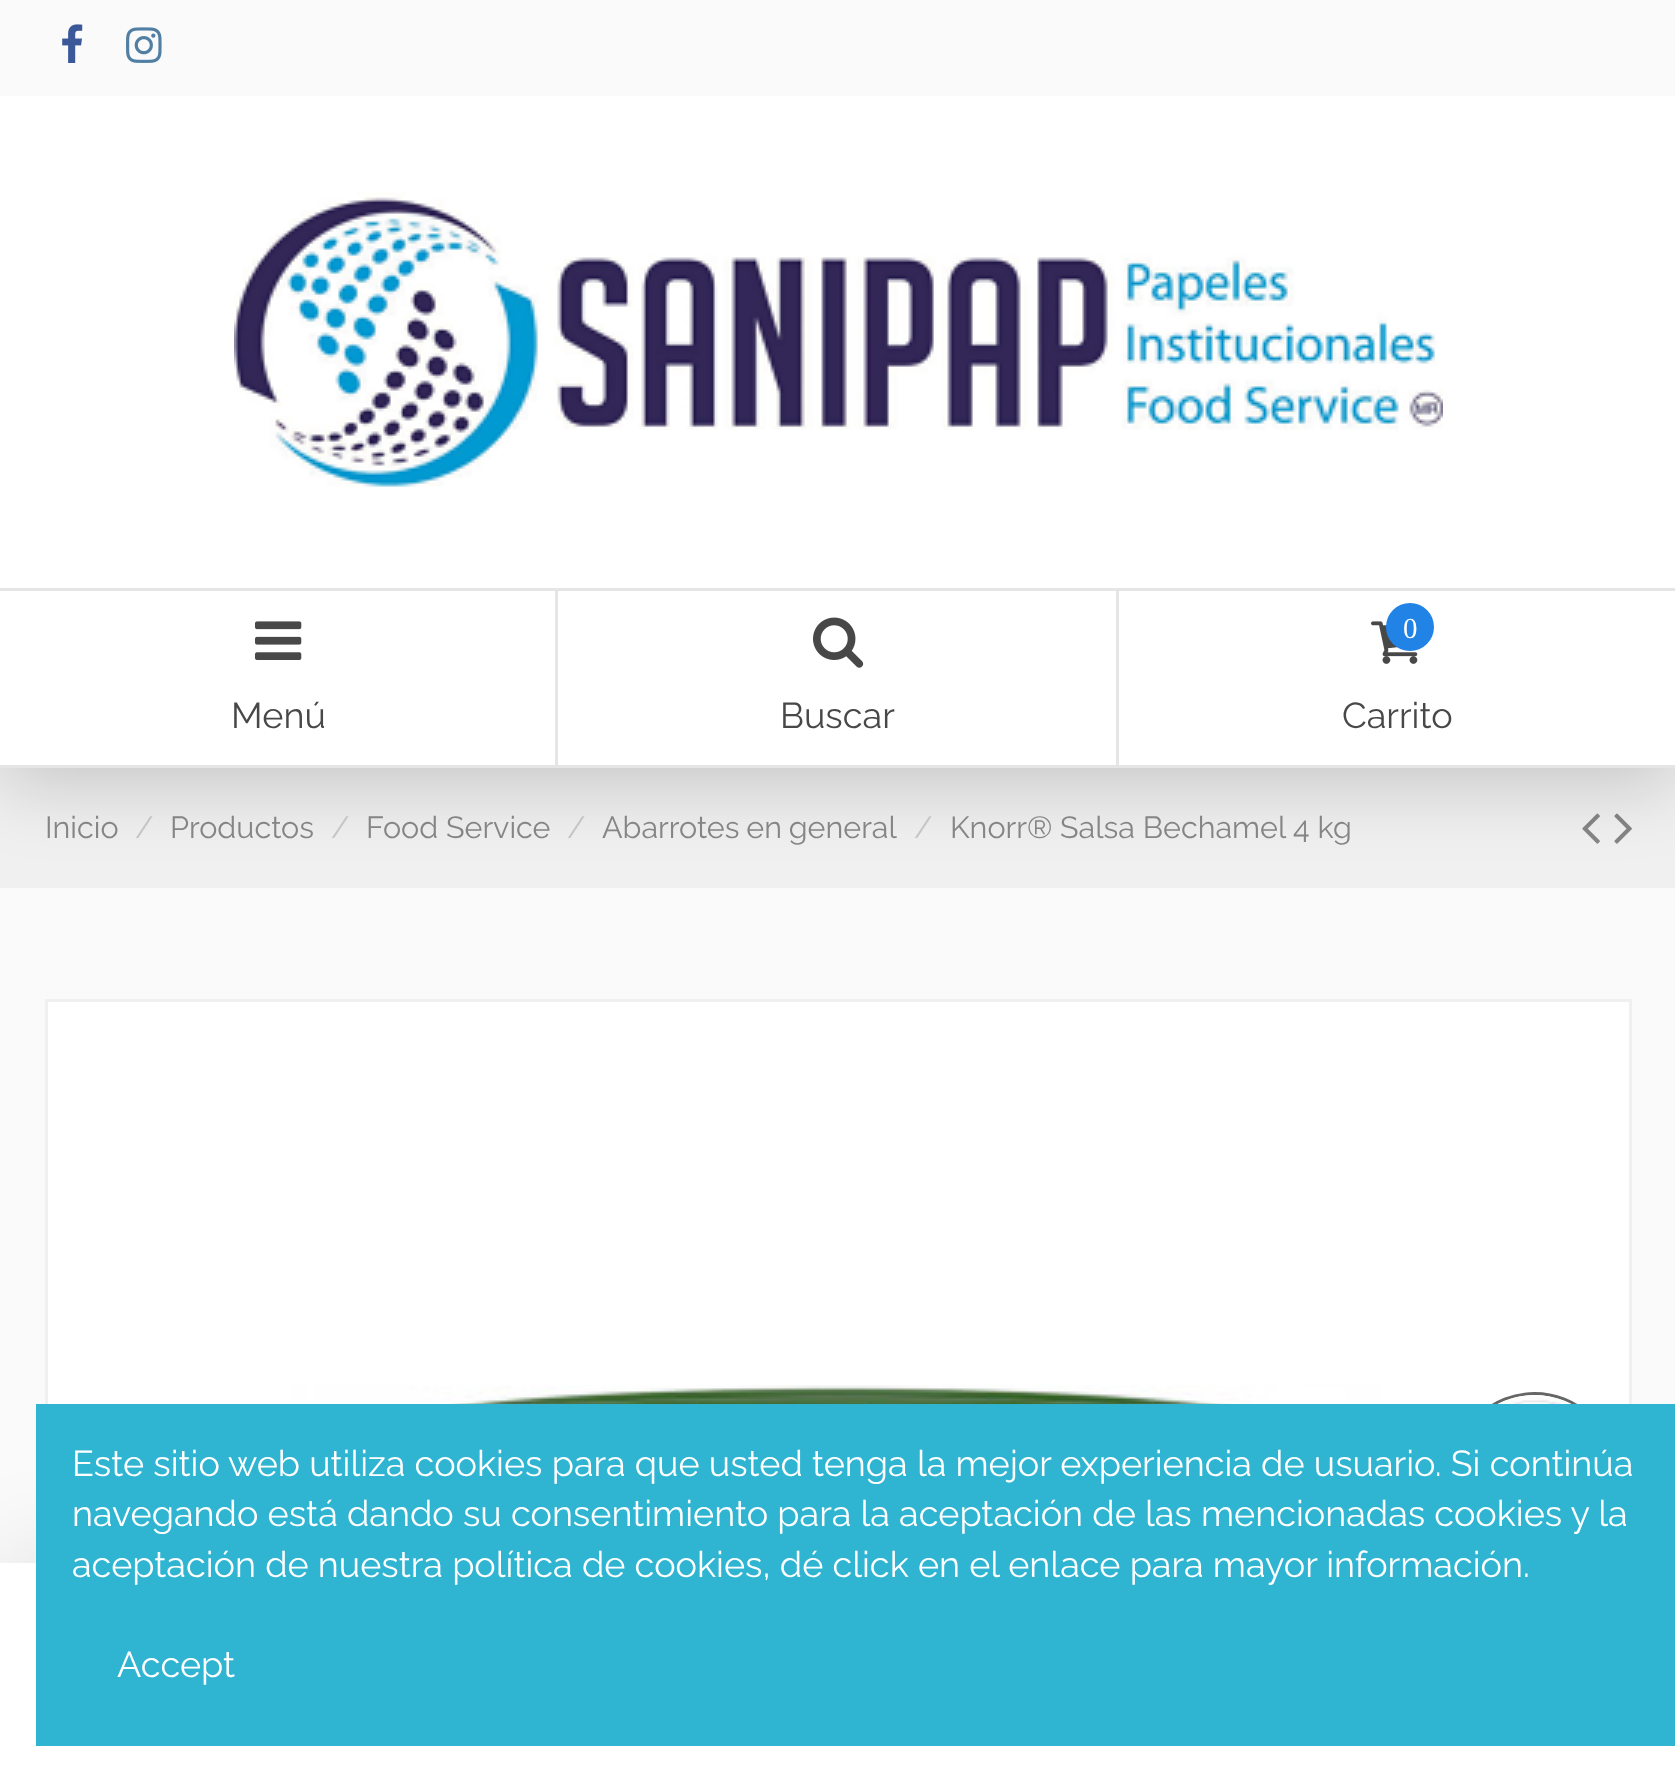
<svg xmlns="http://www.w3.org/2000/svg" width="1675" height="1781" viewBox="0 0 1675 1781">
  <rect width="100%" height="100%" fill="rgb(250,250,250)"/>
  <rect x="0" y="768" width="1675" height="120" fill="rgb(240,240,240)"/>
  <image x="1582" y="813" width="18" height="31" href="pic7.png"/>
  <image x="1614" y="813" width="18" height="31" href="pic8.png"/>
  <rect x="0" y="15" width="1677" height="768" fill="rgba(0,0,0,0.18)" filter="blur(37.5px)"/>
  <rect x="0" y="96" width="1675" height="672" fill="rgb(255,255,255)"/>
  <rect x="0" y="0" width="1675" height="96" fill="rgb(250,250,250)"/>
  <image x="62" y="24" width="21" height="39" href="pic1.png"/>
  <image x="126" y="27" width="36" height="36" href="pic2.png"/>
  <image x="234" y="192" width="1209" height="295" href="pic3.png"/>
  <path d="M0 588H558L555 591H0Z" fill="rgb(229,229,229)"/>
  <path d="M558 588V768L555 765V591Z" fill="rgba(21,21,21,0.11)"/>
  <path d="M558 768H0V765H555Z" fill="rgba(21,21,21,0.11)"/>
  <image x="255" y="621" width="47" height="39" href="pic4.png"/>
  <text x="231" y="728" font-family="Raleway" font-size="36" fill="rgb(72,72,72)">Menú</text>
  <path d="M558 588H1119L1116 591H558Z" fill="rgb(229,229,229)"/>
  <path d="M1119 588V768L1116 765V591Z" fill="rgba(21,21,21,0.11)"/>
  <path d="M1119 768H558V765H1116Z" fill="rgba(21,21,21,0.11)"/>
  <image x="813" y="617" width="51" height="51" href="pic5.png"/>
  <text x="780" y="728" font-family="Raleway" font-size="36" fill="rgb(72,72,72)">Buscar</text>
  <rect x="1119" y="588" width="556" height="3" fill="rgb(229,229,229)"/>
  <rect x="1119" y="765" width="556" height="3" fill="rgb(229,229,229)"/>
  <image x="1371" y="621" width="47" height="43" href="pic6.png"/>
  <circle cx="1410" cy="627" r="24" fill="rgb(33,131,230)"/>
  <text x="1403" y="638" font-family="Liberation Serif" font-size="29" fill="rgb(255,255,255)">0</text>
  <text x="1342" y="728" font-family="Raleway" font-size="36" fill="rgb(72,72,72)">Carrito</text>
  <text x="45" y="838" font-family="Raleway" font-size="30.5" fill="rgb(133,133,133)">Inicio</text>
  <text x="135" y="838" font-family="Raleway" font-size="30.5" fill="rgb(197,197,197)">/</text>
  <text x="170" y="838" font-family="Raleway" font-size="30.5" fill="rgb(133,133,133)">Productos</text>
  <text x="331" y="838" font-family="Raleway" font-size="30.5" fill="rgb(197,197,197)">/</text>
  <text x="366" y="838" font-family="Raleway" font-size="30.5" fill="rgb(133,133,133)">Food Service</text>
  <text x="567" y="838" font-family="Raleway" font-size="30.5" fill="rgb(197,197,197)">/</text>
  <text x="602" y="838" word-spacing="-1" font-family="Raleway" font-size="30.5" fill="rgb(133,133,133)">Abarrotes en general</text>
  <text x="914" y="838" font-family="Raleway" font-size="30.5" fill="rgb(197,197,197)">/</text>
  <text x="950" y="838" font-family="Raleway" font-size="30.5" fill="rgb(133,133,133)">Knorr® Salsa Bechamel 4 kg</text>
  <rect x="48" y="1002" width="1581" height="402" fill="rgb(255,255,255)"/>
  <rect x="46.5" y="1000.5" width="1584" height="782" fill="none" stroke="rgb(240,240,240)" stroke-width="3"/>
  <image x="291" y="1385" width="1089" height="19" href="pic9.png"/>
  <rect x="0" y="1551" width="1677" height="219" fill="rgba(0,0,0,0.09)" filter="blur(45px)"/>
  <rect x="0" y="1563" width="1675" height="218" fill="rgb(255,255,255)"/>
  <circle cx="1534.5" cy="1474.5" r="81" fill="none" stroke="rgb(102,102,102)" stroke-width="3"/>
  <image x="1498" y="1395" width="73" height="9" href="pic10.png"/>
  <rect x="36" y="1404" width="1639" height="342" fill="rgb(47,181,210)"/>
  <g font-family="Raleway" font-size="36" fill="rgb(255,255,255)">
    <text>
      <tspan x="72" y="1476">Este sitio web utiliza cookies para que usted tenga la mejor experiencia de usuario. Si continúa</tspan>
      <tspan x="72" y="1526">navegando está dando su consentimiento para la aceptación de las mencionadas cookies y la</tspan>
      <tspan x="72" y="1577">aceptación de nuestra política de cookies, dé click en el enlace para mayor información.</tspan>
    </text>
    <text x="117" y="1677">Accept</text>
  </g>
</svg>
